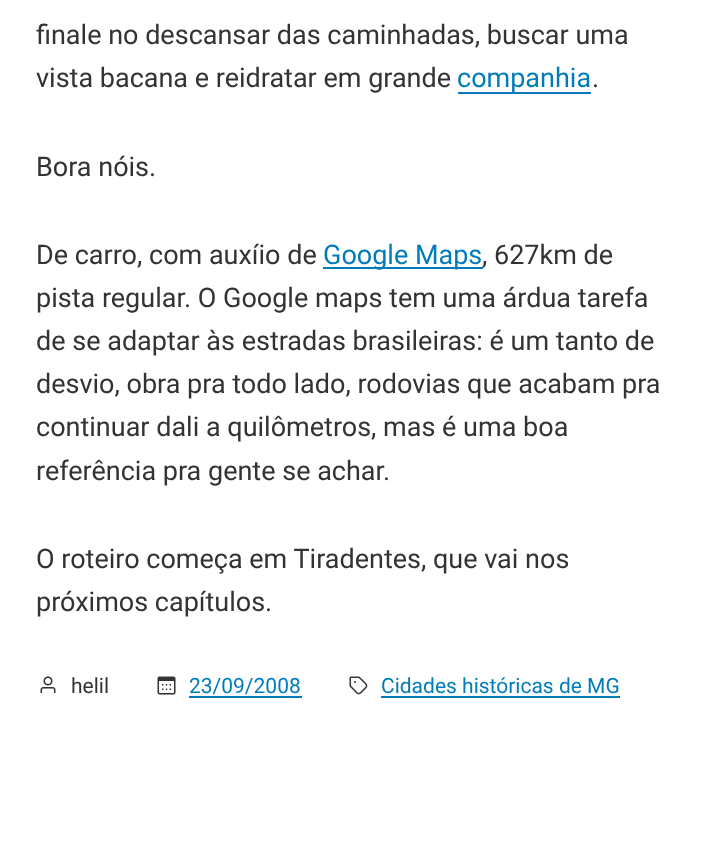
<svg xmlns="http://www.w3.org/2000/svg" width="713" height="864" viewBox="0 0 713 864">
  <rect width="100%" height="100%" fill="rgb(255,255,255)"/>
  <g font-family="Roboto" font-size="27" fill="rgb(51,51,51)">
    <text>
      <tspan x="36" y="44">finale no descansar das caminhadas, buscar uma</tspan>
      <tspan x="36" y="87">vista bacana e reidratar em grande</tspan>
    </text>
  </g>
  <rect x="458" y="92" width="133" height="2" fill="rgb(0,124,186)"/>
  <text x="457" y="87" font-family="Roboto" font-size="27" fill="rgb(0,124,186)">companhia</text>
  <g font-family="Roboto" font-size="27" fill="rgb(51,51,51)">
    <text x="592" y="87">.</text>
    <text x="36" y="176">Bora nóis.</text>
    <text x="36" y="264">De carro, com auxíio de</text>
  </g>
  <rect x="323" y="267" width="160" height="2" fill="rgb(0,124,186)"/>
  <text x="323" y="264" font-family="Roboto" font-size="27" fill="rgb(0,124,186)">Google Maps</text>
  <g font-family="Roboto" font-size="27" fill="rgb(51,51,51)">
    <text x="482" y="264">, 627km de</text>
    <text>
      <tspan x="36" y="307">pista regular. O Google maps tem uma árdua tarefa</tspan>
      <tspan x="36" y="350">de se adaptar às estradas brasileiras: é um tanto de</tspan>
      <tspan x="36" y="393">desvio, obra pra todo lado, rodovias que acabam pra</tspan>
      <tspan x="36" y="436">continuar dali a quilômetros, mas é uma boa</tspan>
      <tspan x="36" y="480">referência pra gente se achar.</tspan>
    </text>
    <text>
      <tspan x="36" y="568">O roteiro começa em Tiradentes, que vai nos</tspan>
      <tspan x="36" y="611">próximos capítulos.</tspan>
    </text>
  </g>
  <image x="40" y="676" width="16" height="17" href="pic1.png"/>
  <text x="71" y="693" font-family="Roboto" font-size="21" fill="rgb(51,51,51)">helil</text>
  <image x="157" y="676" width="19" height="19" href="pic2.png"/>
  <text x="189" y="693" font-family="Roboto" font-size="21" fill="rgb(0,124,186)">23/09/2008</text>
  <rect x="189" y="696" width="113" height="2" fill="rgb(0,124,186)"/>
  <image x="349" y="676" width="19" height="19" href="pic3.png"/>
  <text x="381" y="693" font-family="Roboto" font-size="21" fill="rgb(0,124,186)">Cidades históricas de MG</text>
  <rect x="381" y="696" width="239" height="2" fill="rgb(0,124,186)"/>
</svg>
